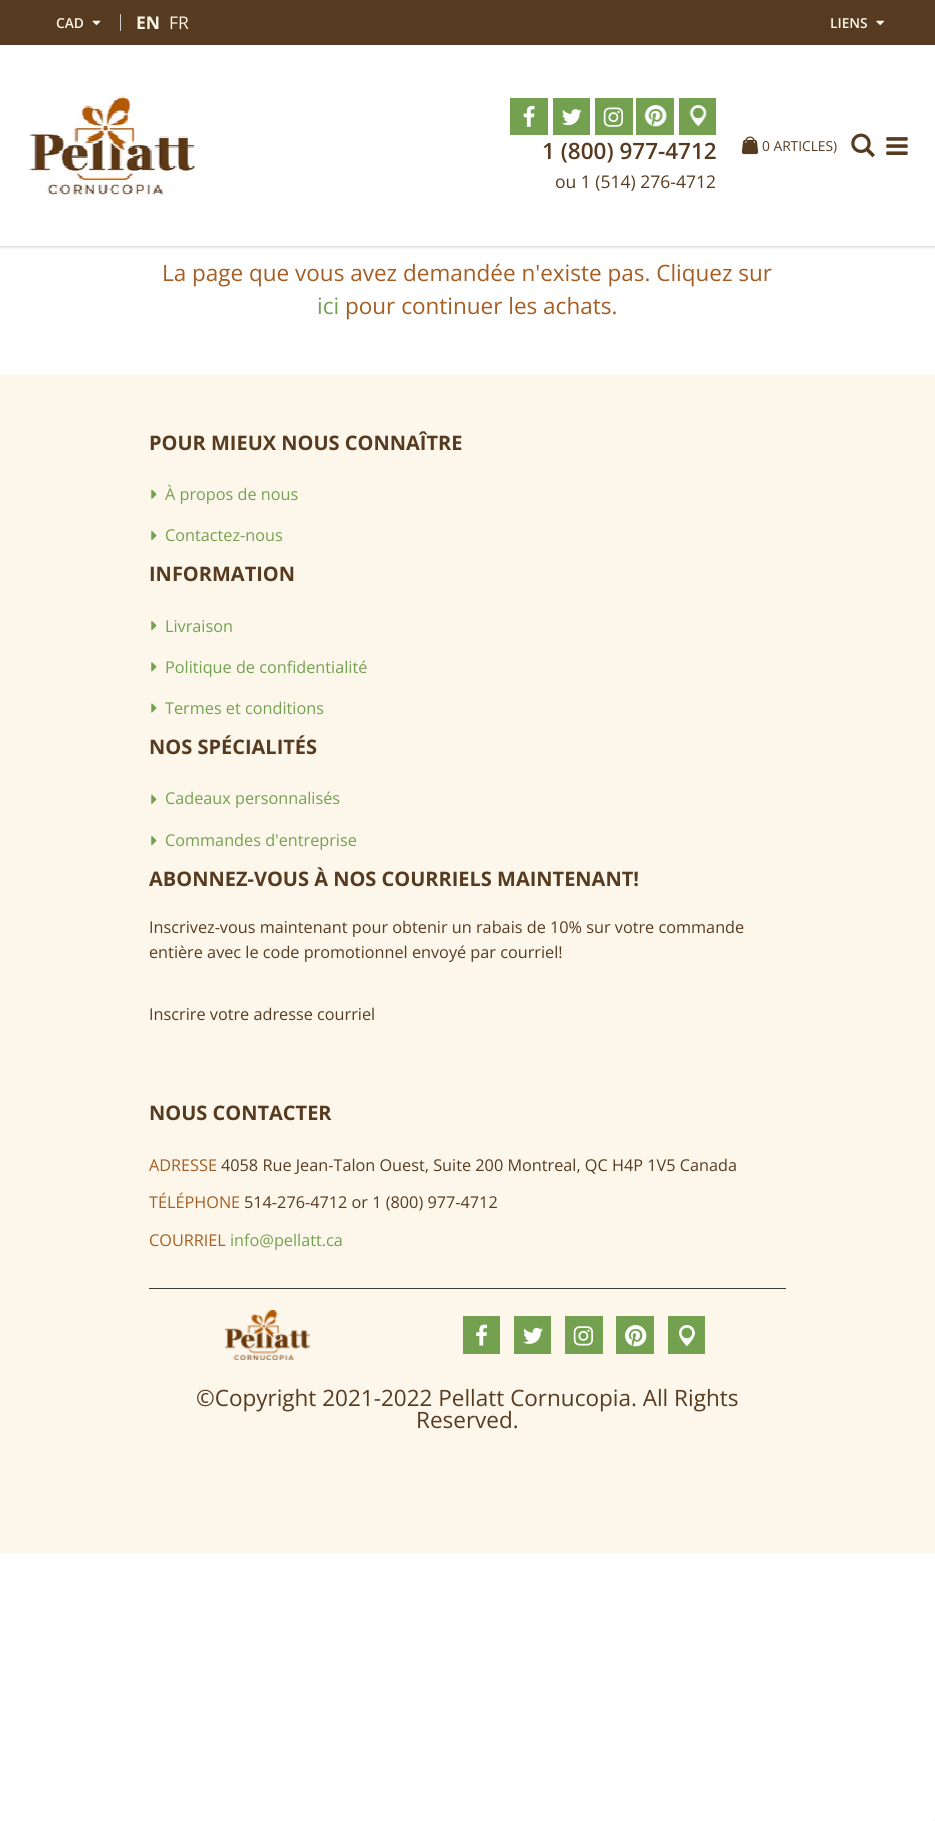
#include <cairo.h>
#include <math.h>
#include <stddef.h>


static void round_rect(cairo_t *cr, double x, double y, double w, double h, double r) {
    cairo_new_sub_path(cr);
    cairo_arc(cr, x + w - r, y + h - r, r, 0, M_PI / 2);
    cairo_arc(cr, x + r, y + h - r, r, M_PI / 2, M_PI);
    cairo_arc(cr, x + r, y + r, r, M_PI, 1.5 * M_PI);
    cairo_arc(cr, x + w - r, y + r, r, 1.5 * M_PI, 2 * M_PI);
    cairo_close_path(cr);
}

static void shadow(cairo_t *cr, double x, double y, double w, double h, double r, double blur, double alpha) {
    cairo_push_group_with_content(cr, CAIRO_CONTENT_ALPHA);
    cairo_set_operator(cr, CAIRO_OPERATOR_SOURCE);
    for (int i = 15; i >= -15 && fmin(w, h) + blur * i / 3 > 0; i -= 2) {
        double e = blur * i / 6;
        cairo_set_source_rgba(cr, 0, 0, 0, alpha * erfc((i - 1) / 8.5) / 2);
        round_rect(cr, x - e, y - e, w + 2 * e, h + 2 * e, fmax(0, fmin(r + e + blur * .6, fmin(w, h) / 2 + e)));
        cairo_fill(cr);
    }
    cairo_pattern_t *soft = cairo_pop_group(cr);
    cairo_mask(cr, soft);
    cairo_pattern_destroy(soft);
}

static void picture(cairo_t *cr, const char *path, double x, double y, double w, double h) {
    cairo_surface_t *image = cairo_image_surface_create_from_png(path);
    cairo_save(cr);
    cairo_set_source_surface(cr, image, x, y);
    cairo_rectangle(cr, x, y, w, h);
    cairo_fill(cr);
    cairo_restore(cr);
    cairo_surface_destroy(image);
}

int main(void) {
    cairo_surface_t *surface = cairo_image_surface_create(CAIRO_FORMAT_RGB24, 935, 1821);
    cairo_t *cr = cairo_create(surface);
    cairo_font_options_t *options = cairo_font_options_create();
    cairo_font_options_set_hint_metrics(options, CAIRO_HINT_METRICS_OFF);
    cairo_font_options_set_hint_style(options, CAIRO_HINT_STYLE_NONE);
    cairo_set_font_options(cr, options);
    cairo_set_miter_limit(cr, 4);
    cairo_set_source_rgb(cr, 1, 1, 1);
    cairo_paint(cr);
    cairo_set_source_rgb(cr, 0, 0, 0);
    shadow(cr, 0, 0, 935, 246, 0, 2, 0.3);
    cairo_set_source_rgb(cr, 1, 1, 1);
    cairo_rectangle(cr, 0, 45, 935, 201);
    cairo_fill(cr);
    cairo_set_source_rgb(cr, 0.341, 0.231, 0.125);
    cairo_rectangle(cr, 0, 0, 935, 45);
    cairo_fill(cr);
    cairo_select_font_face(cr, "Open Sans SemiBold", CAIRO_FONT_SLANT_NORMAL, CAIRO_FONT_WEIGHT_NORMAL);
    cairo_set_font_size(cr, 13.75);
    cairo_set_source_rgb(cr, 0.992, 0.965, 0.918);
    cairo_move_to(cr, 56, 28);
    cairo_show_text(cr, "CAD");
    picture(cr, "img1.png", 92, 20, 9, 6);
    cairo_set_source_rgb(cr, 0.8, 0.8, 0.8);
    cairo_rectangle(cr, 120, 14, 1, 17);
    cairo_fill(cr);
    cairo_select_font_face(cr, "Open Sans", CAIRO_FONT_SLANT_NORMAL, CAIRO_FONT_WEIGHT_BOLD);
    cairo_set_font_size(cr, 17.5);
    cairo_set_source_rgb(cr, 0.992, 0.965, 0.918);
    cairo_move_to(cr, 136, 29);
    cairo_show_text(cr, "EN");
    cairo_select_font_face(cr, "Open Sans", CAIRO_FONT_SLANT_NORMAL, CAIRO_FONT_WEIGHT_NORMAL);
    cairo_move_to(cr, 169, 29);
    cairo_show_text(cr, "FR");
    cairo_select_font_face(cr, "Open Sans SemiBold", CAIRO_FONT_SLANT_NORMAL, CAIRO_FONT_WEIGHT_NORMAL);
    cairo_set_font_size(cr, 13.75);
    cairo_move_to(cr, 830, 28);
    cairo_show_text(cr, "LIENS");
    picture(cr, "img2.png", 876, 20, 9, 6);
    picture(cr, "img3.png", 29, 95, 169, 101);
    cairo_set_source_rgb(cr, 0.451, 0.631, 0.314);
    cairo_rectangle(cr, 510, 98, 38, 37);
    cairo_fill(cr);
    picture(cr, "img4.png", 523, 105, 12, 22);
    cairo_rectangle(cr, 553, 98, 37, 37);
    cairo_fill(cr);
    picture(cr, "img5.png", 562, 109, 20, 17);
    cairo_rectangle(cr, 595, 98, 38, 37);
    cairo_fill(cr);
    picture(cr, "img6.png", 603, 107, 21, 20);
    cairo_rectangle(cr, 636, 98, 38, 37);
    cairo_fill(cr);
    picture(cr, "img7.png", 644, 105, 23, 22);
    cairo_rectangle(cr, 679, 98, 37, 37);
    cairo_fill(cr);
    picture(cr, "img8.png", 689, 105, 18, 22);
    cairo_set_font_size(cr, 22.5);
    cairo_set_source_rgb(cr, 0.341, 0.231, 0.125);
    cairo_move_to(cr, 542, 159);
    cairo_show_text(cr, "1 (800) 977-4712");
    cairo_select_font_face(cr, "Open Sans", CAIRO_FONT_SLANT_NORMAL, CAIRO_FONT_WEIGHT_NORMAL);
    cairo_set_font_size(cr, 17.5);
    cairo_move_to(cr, 555, 188);
    cairo_show_text(cr, "ou 1 (514) 276-4712");
    picture(cr, "img9.png", 741, 136, 18, 19);
    cairo_set_font_size(cr, 13.75);
    cairo_move_to(cr, 762, 151);
    cairo_show_text(cr, "0 ARTICLES)");
    picture(cr, "img10.png", 851, 133, 24, 25);
    picture(cr, "img11.png", 886, 137, 22, 18);
    cairo_set_font_size(cr, 22.5);
    cairo_set_source_rgb(cr, 0.651, 0.365, 0.129);
    cairo_move_to(cr, 162, 281);
    cairo_show_text(cr, "La page que vous avez demandée n'existe pas. Cliquez sur");
    cairo_set_source_rgb(cr, 0.451, 0.631, 0.314);
    cairo_move_to(cr, 317, 314);
    cairo_show_text(cr, "ici");
    cairo_set_source_rgb(cr, 0.651, 0.365, 0.129);
    cairo_move_to(cr, 345, 314);
    cairo_show_text(cr, "pour continuer les achats.");
    cairo_set_source_rgb(cr, 0.992, 0.965, 0.918);
    cairo_rectangle(cr, 0, 375, 935, 913);
    cairo_fill(cr);
    cairo_select_font_face(cr, "Open Sans", CAIRO_FONT_SLANT_NORMAL, CAIRO_FONT_WEIGHT_BOLD);
    cairo_set_font_size(cr, 20);
    cairo_set_source_rgb(cr, 0.341, 0.231, 0.125);
    cairo_move_to(cr, 149, 450);
    cairo_show_text(cr, "POUR MIEUX NOUS CONNAÎTRE");
    picture(cr, "img12.png", 151, 489, 6, 10);
    cairo_select_font_face(cr, "Open Sans", CAIRO_FONT_SLANT_NORMAL, CAIRO_FONT_WEIGHT_NORMAL);
    cairo_set_font_size(cr, 16.25);
    cairo_set_source_rgb(cr, 0.451, 0.631, 0.314);
    cairo_move_to(cr, 165, 500);
    cairo_show_text(cr, "À propos de nous");
    picture(cr, "img13.png", 151, 531, 6, 10);
    cairo_move_to(cr, 165, 541);
    cairo_show_text(cr, "Contactez-nous");
    cairo_select_font_face(cr, "Open Sans", CAIRO_FONT_SLANT_NORMAL, CAIRO_FONT_WEIGHT_BOLD);
    cairo_set_font_size(cr, 20);
    cairo_set_source_rgb(cr, 0.341, 0.231, 0.125);
    cairo_move_to(cr, 149, 581);
    cairo_show_text(cr, "INFORMATION");
    picture(cr, "img13.png", 151, 621, 6, 10);
    cairo_select_font_face(cr, "Open Sans", CAIRO_FONT_SLANT_NORMAL, CAIRO_FONT_WEIGHT_NORMAL);
    cairo_set_font_size(cr, 16.25);
    cairo_set_source_rgb(cr, 0.451, 0.631, 0.314);
    cairo_move_to(cr, 165, 632);
    cairo_show_text(cr, "Livraison");
    picture(cr, "img14.png", 151, 662, 6, 10);
    cairo_move_to(cr, 165, 673);
    cairo_show_text(cr, "Politique de confidentialité");
    picture(cr, "img15.png", 151, 703, 6, 10);
    cairo_move_to(cr, 165, 714);
    cairo_show_text(cr, "Termes et conditions");
    cairo_select_font_face(cr, "Open Sans", CAIRO_FONT_SLANT_NORMAL, CAIRO_FONT_WEIGHT_BOLD);
    cairo_set_font_size(cr, 20);
    cairo_set_source_rgb(cr, 0.341, 0.231, 0.125);
    cairo_move_to(cr, 149, 754);
    cairo_show_text(cr, "NOS SPÉCIALITÉS");
    picture(cr, "img12.png", 151, 794, 6, 10);
    cairo_select_font_face(cr, "Open Sans", CAIRO_FONT_SLANT_NORMAL, CAIRO_FONT_WEIGHT_NORMAL);
    cairo_set_font_size(cr, 16.25);
    cairo_set_source_rgb(cr, 0.451, 0.631, 0.314);
    cairo_move_to(cr, 165, 804);
    cairo_show_text(cr, "Cadeaux personnalisés");
    picture(cr, "img13.png", 151, 836, 6, 10);
    cairo_move_to(cr, 165, 846);
    cairo_show_text(cr, "Commandes d'entreprise");
    cairo_select_font_face(cr, "Open Sans", CAIRO_FONT_SLANT_NORMAL, CAIRO_FONT_WEIGHT_BOLD);
    cairo_set_font_size(cr, 20);
    cairo_set_source_rgb(cr, 0.341, 0.231, 0.125);
    cairo_move_to(cr, 149, 886);
    cairo_show_text(cr, "ABONNEZ-VOUS À NOS COURRIELS MAINTENANT!");
    cairo_select_font_face(cr, "Open Sans", CAIRO_FONT_SLANT_NORMAL, CAIRO_FONT_WEIGHT_NORMAL);
    cairo_set_font_size(cr, 16.25);
    cairo_move_to(cr, 149, 933);
    cairo_show_text(cr, "Inscrivez-vous maintenant pour obtenir un rabais de 10% sur votre commande");
    cairo_move_to(cr, 149, 958);
    cairo_show_text(cr, "entière avec le code promotionnel envoyé par courriel!");
    cairo_move_to(cr, 149, 1020);
    cairo_show_text(cr, "Inscrire votre adresse courriel");
    cairo_select_font_face(cr, "Open Sans", CAIRO_FONT_SLANT_NORMAL, CAIRO_FONT_WEIGHT_BOLD);
    cairo_set_font_size(cr, 20);
    cairo_move_to(cr, 149, 1120);
    cairo_show_text(cr, "NOUS CONTACTER");
    cairo_select_font_face(cr, "Open Sans", CAIRO_FONT_SLANT_NORMAL, CAIRO_FONT_WEIGHT_NORMAL);
    cairo_set_font_size(cr, 16.25);
    cairo_set_source_rgb(cr, 0.651, 0.365, 0.129);
    cairo_move_to(cr, 149, 1171);
    cairo_show_text(cr, "ADRESSE");
    cairo_set_source_rgb(cr, 0.341, 0.231, 0.125);
    cairo_move_to(cr, 221, 1171);
    cairo_show_text(cr, "4058 Rue Jean-Talon Ouest, Suite 200 Montreal, QC H4P 1V5 Canada");
    cairo_set_source_rgb(cr, 0.651, 0.365, 0.129);
    cairo_move_to(cr, 149, 1208);
    cairo_show_text(cr, "TÉLÉPHONE");
    cairo_set_source_rgb(cr, 0.341, 0.231, 0.125);
    cairo_move_to(cr, 244, 1208);
    cairo_show_text(cr, "514-276-4712 or 1 (800) 977-4712");
    cairo_set_source_rgb(cr, 0.651, 0.365, 0.129);
    cairo_move_to(cr, 149, 1246);
    cairo_show_text(cr, "COURRIEL");
    cairo_set_source_rgb(cr, 0.451, 0.631, 0.314);
    cairo_move_to(cr, 230, 1246);
    cairo_show_text(cr, "info@pellatt.ca");
    cairo_set_source_rgb(cr, 0.992, 0.965, 0.918);
    cairo_rectangle(cr, 0, 1288, 935, 265);
    cairo_fill(cr);
    cairo_set_source_rgb(cr, 0.239, 0.239, 0.22);
    cairo_rectangle(cr, 149, 1288, 637, 1);
    cairo_fill(cr);
    picture(cr, "img16.png", 225, 1310, 85, 50);
    cairo_set_source_rgb(cr, 0.451, 0.631, 0.314);
    cairo_rectangle(cr, 463, 1316, 37, 38);
    cairo_fill(cr);
    picture(cr, "img17.png", 476, 1324, 12, 22);
    cairo_rectangle(cr, 514, 1316, 37, 38);
    cairo_fill(cr);
    picture(cr, "img18.png", 523, 1327, 20, 17);
    cairo_rectangle(cr, 565, 1316, 38, 38);
    cairo_fill(cr);
    picture(cr, "img19.png", 573, 1326, 21, 20);
    cairo_rectangle(cr, 616, 1316, 38, 38);
    cairo_fill(cr);
    picture(cr, "img20.png", 625, 1325, 22, 22);
    cairo_rectangle(cr, 668, 1316, 37, 38);
    cairo_fill(cr);
    picture(cr, "img21.png", 679, 1325, 16, 22);
    cairo_set_font_size(cr, 22.5);
    cairo_set_source_rgb(cr, 0.341, 0.231, 0.125);
    cairo_move_to(cr, 196, 1406);
    cairo_show_text(cr, "©Copyright 2021-2022 Pellatt Cornucopia. All Rights");
    cairo_move_to(cr, 416, 1428);
    cairo_show_text(cr, "Reserved.");
    cairo_set_source_rgb(cr, 0.961, 0.961, 0.961);
    cairo_rectangle(cr, 933, 1819, 2, 2);
    cairo_fill(cr);
    cairo_surface_write_to_png(surface, "page.png");
    cairo_font_options_destroy(options);
    cairo_destroy(cr);
    cairo_surface_destroy(surface);
    return 0;
}
